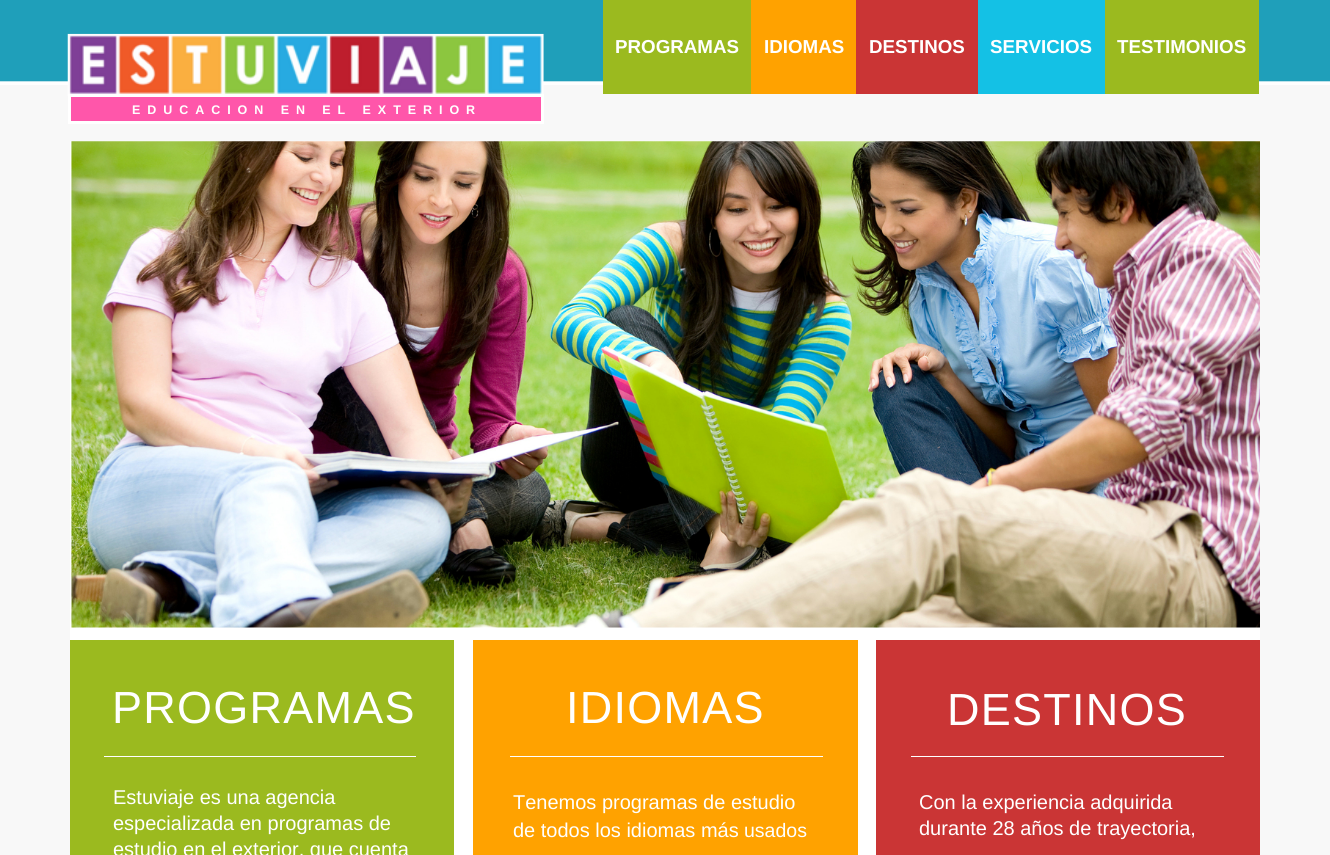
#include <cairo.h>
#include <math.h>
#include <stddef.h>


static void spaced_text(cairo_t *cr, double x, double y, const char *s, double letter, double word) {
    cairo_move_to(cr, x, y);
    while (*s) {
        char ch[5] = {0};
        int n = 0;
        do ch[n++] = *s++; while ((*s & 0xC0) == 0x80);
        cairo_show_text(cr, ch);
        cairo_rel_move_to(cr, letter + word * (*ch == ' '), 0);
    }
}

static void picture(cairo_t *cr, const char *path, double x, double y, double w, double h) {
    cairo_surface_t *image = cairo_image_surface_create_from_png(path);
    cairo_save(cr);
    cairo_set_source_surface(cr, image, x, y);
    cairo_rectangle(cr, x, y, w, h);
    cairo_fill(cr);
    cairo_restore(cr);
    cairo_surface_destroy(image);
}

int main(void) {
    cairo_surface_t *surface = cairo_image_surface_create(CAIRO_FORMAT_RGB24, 1330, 855);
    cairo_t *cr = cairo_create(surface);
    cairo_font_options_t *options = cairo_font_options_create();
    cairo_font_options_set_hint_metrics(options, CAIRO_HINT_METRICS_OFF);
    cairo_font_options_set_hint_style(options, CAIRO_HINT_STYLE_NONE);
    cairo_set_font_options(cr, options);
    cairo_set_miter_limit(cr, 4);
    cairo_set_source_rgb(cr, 0.969, 0.969, 0.969);
    cairo_paint(cr);
    picture(cr, "img1.png", 0, 0, 1330, 85);
    cairo_set_source_rgb(cr, 1, 1, 1);
    cairo_rectangle(cr, 70, 141, 1190, 714);
    cairo_fill(cr);
    picture(cr, "img2.png", 67, 33, 477, 63);
    cairo_set_source_rgb(cr, 0.608, 0.729, 0.122);
    cairo_rectangle(cr, 603, 0, 148, 94);
    cairo_fill(cr);
    cairo_select_font_face(cr, "Liberation Sans", CAIRO_FONT_SLANT_NORMAL, CAIRO_FONT_WEIGHT_BOLD);
    cairo_set_font_size(cr, 18.75);
    cairo_set_source_rgb(cr, 1, 1, 1);
    cairo_move_to(cr, 615, 53);
    cairo_show_text(cr, "PROGRAMAS");
    cairo_set_source_rgb(cr, 1, 0.635, 0);
    cairo_rectangle(cr, 751, 0, 105, 94);
    cairo_fill(cr);
    cairo_set_source_rgb(cr, 1, 1, 1);
    cairo_move_to(cr, 764, 53);
    cairo_show_text(cr, "IDIOMAS");
    cairo_set_source_rgb(cr, 0.792, 0.208, 0.208);
    cairo_rectangle(cr, 856, 0, 122, 94);
    cairo_fill(cr);
    cairo_set_source_rgb(cr, 1, 1, 1);
    cairo_move_to(cr, 869, 53);
    cairo_show_text(cr, "DESTINOS");
    cairo_set_source_rgb(cr, 0.082, 0.757, 0.898);
    cairo_rectangle(cr, 978, 0, 127, 94);
    cairo_fill(cr);
    cairo_set_source_rgb(cr, 1, 1, 1);
    cairo_move_to(cr, 990, 53);
    cairo_show_text(cr, "SERVICIOS");
    cairo_set_source_rgb(cr, 0.608, 0.729, 0.122);
    cairo_rectangle(cr, 1105, 0, 154, 94);
    cairo_fill(cr);
    cairo_set_source_rgb(cr, 1, 1, 1);
    cairo_move_to(cr, 1117, 53);
    cairo_show_text(cr, "TESTIMONIOS");
    cairo_set_source_rgb(cr, 1, 0.337, 0.667);
    cairo_rectangle(cr, 69.5, 95.5, 473, 27);
    cairo_fill_preserve(cr);
    cairo_set_source_rgb(cr, 1, 1, 1);
    cairo_set_line_width(cr, 3);
    cairo_stroke(cr);
    cairo_set_font_size(cr, 12.5);
    cairo_move_to(cr, 132, 114);
    cairo_show_text(cr, "E  D  U  C  A  C  I  O  N     E  N     E  L     E  X  T  E  R  I  O  R");
    picture(cr, "img3.png", 71, 141, 1189, 487);
    cairo_set_source_rgb(cr, 0.608, 0.729, 0.122);
    cairo_rectangle(cr, 70, 640, 384, 215);
    cairo_fill(cr);
    cairo_set_source_rgb(cr, 1, 0.635, 0);
    cairo_rectangle(cr, 473, 640, 385, 215);
    cairo_fill(cr);
    cairo_set_source_rgb(cr, 0.792, 0.208, 0.208);
    cairo_rectangle(cr, 876, 640, 384, 215);
    cairo_fill(cr);
    cairo_select_font_face(cr, "Liberation Sans", CAIRO_FONT_SLANT_NORMAL, CAIRO_FONT_WEIGHT_NORMAL);
    cairo_set_font_size(cr, 45);
    cairo_set_source_rgb(cr, 1, 1, 1);
    spaced_text(cr, 112, 723, "PROGRAMAS", 1.25, 0);
    spaced_text(cr, 566, 723, "IDIOMAS", 1.25, 0);
    spaced_text(cr, 947, 725, "DESTINOS", 1.25, 0);
    cairo_rectangle(cr, 104, 756, 312, 1);
    cairo_fill(cr);
    cairo_rectangle(cr, 510, 756, 313, 1);
    cairo_fill(cr);
    cairo_rectangle(cr, 911, 756, 313, 1);
    cairo_fill(cr);
    cairo_set_font_size(cr, 20);
    cairo_move_to(cr, 113, 804);
    cairo_show_text(cr, "Estuviaje es una agencia");
    cairo_move_to(cr, 113, 830);
    cairo_show_text(cr, "especializada en programas de");
    cairo_move_to(cr, 113, 856);
    cairo_show_text(cr, "estudio en el exterior, que cuenta");
    cairo_move_to(cr, 513, 809);
    cairo_show_text(cr, "Tenemos programas de estudio");
    cairo_move_to(cr, 513, 837);
    cairo_show_text(cr, "de todos los idiomas más");
    cairo_set_font_size(cr, 19.5);
    cairo_move_to(cr, 744, 837);
    cairo_show_text(cr, "usados");
    cairo_set_font_size(cr, 20);
    cairo_move_to(cr, 919, 809);
    cairo_show_text(cr, "Con la experiencia adquirida");
    cairo_move_to(cr, 919, 835);
    cairo_show_text(cr, "durante 28 años de trayectoria,");
    cairo_surface_write_to_png(surface, "page.png");
    cairo_font_options_destroy(options);
    cairo_destroy(cr);
    cairo_surface_destroy(surface);
    return 0;
}
